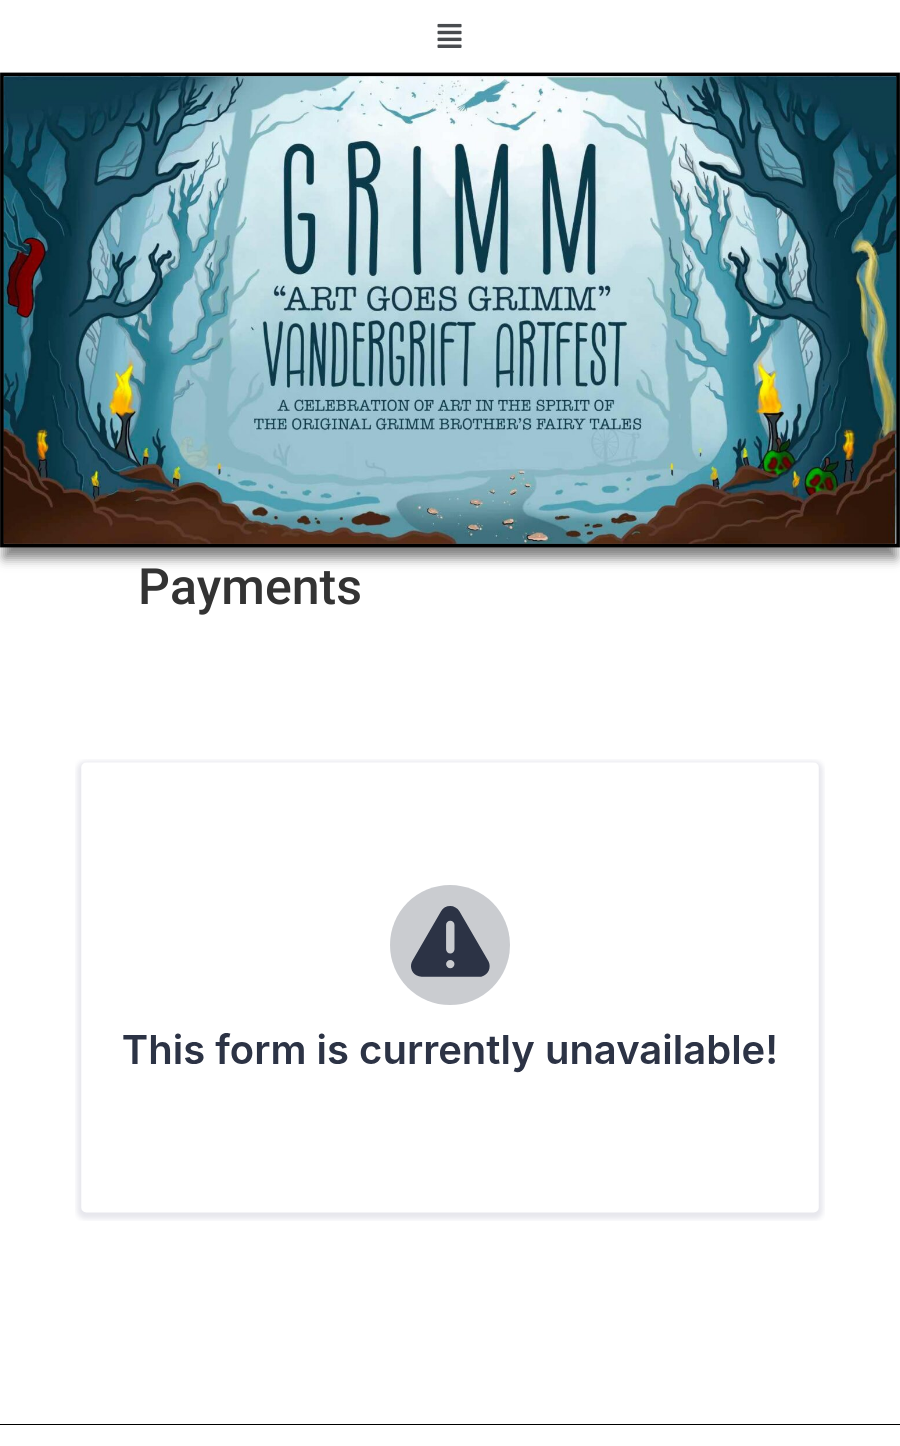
#include <cairo.h>
#include <math.h>
#include <stddef.h>


static void round_rect(cairo_t *cr, double x, double y, double w, double h, double r) {
    cairo_new_sub_path(cr);
    cairo_arc(cr, x + w - r, y + h - r, r, 0, M_PI / 2);
    cairo_arc(cr, x + r, y + h - r, r, M_PI / 2, M_PI);
    cairo_arc(cr, x + r, y + r, r, M_PI, 1.5 * M_PI);
    cairo_arc(cr, x + w - r, y + r, r, 1.5 * M_PI, 2 * M_PI);
    cairo_close_path(cr);
}

static void shadow(cairo_t *cr, double x, double y, double w, double h, double r, double blur, double alpha) {
    cairo_push_group_with_content(cr, CAIRO_CONTENT_ALPHA);
    cairo_set_operator(cr, CAIRO_OPERATOR_SOURCE);
    for (int i = 15; i >= -15 && fmin(w, h) + blur * i / 3 > 0; i -= 2) {
        double e = blur * i / 6;
        cairo_set_source_rgba(cr, 0, 0, 0, alpha * erfc((i - 1) / 8.5) / 2);
        round_rect(cr, x - e, y - e, w + 2 * e, h + 2 * e, fmax(0, fmin(r + e + blur * .6, fmin(w, h) / 2 + e)));
        cairo_fill(cr);
    }
    cairo_pattern_t *soft = cairo_pop_group(cr);
    cairo_mask(cr, soft);
    cairo_pattern_destroy(soft);
}

static void picture(cairo_t *cr, const char *path, double x, double y, double w, double h) {
    cairo_surface_t *image = cairo_image_surface_create_from_png(path);
    cairo_save(cr);
    cairo_set_source_surface(cr, image, x, y);
    cairo_rectangle(cr, x, y, w, h);
    cairo_fill(cr);
    cairo_restore(cr);
    cairo_surface_destroy(image);
}

int main(void) {
    cairo_surface_t *surface = cairo_image_surface_create(CAIRO_FORMAT_RGB24, 900, 1446);
    cairo_t *cr = cairo_create(surface);
    cairo_font_options_t *options = cairo_font_options_create();
    cairo_font_options_set_hint_metrics(options, CAIRO_HINT_METRICS_OFF);
    cairo_font_options_set_hint_style(options, CAIRO_HINT_STYLE_NONE);
    cairo_set_font_options(cr, options);
    cairo_set_miter_limit(cr, 4);
    cairo_set_source_rgb(cr, 1, 1, 1);
    cairo_paint(cr);
    picture(cr, "img1.png", 437, 23, 25, 25);
    cairo_new_path(cr);
    cairo_move_to(cr, 2, 74.5);
    cairo_line_to(cr, 898, 74.5);
    cairo_line_to(cr, 898, 545.5);
    cairo_line_to(cr, 2, 545.5);
    cairo_close_path(cr);
    cairo_set_source_rgb(cr, 0, 0, 0);
    cairo_set_line_width(cr, 3.8);
    cairo_stroke(cr);
    cairo_set_source_rgb(cr, 0, 0, 0);
    shadow(cr, 4, 90, 892, 468, 0, 6, 0.5);
    picture(cr, "img2.png", 3, 76, 894, 468);
    cairo_select_font_face(cr, "Roboto Medium", CAIRO_FONT_SLANT_NORMAL, CAIRO_FONT_WEIGHT_NORMAL);
    cairo_set_font_size(cr, 50);
    cairo_set_source_rgb(cr, 0.2, 0.2, 0.2);
    cairo_move_to(cr, 138, 604);
    cairo_show_text(cr, "Payments");
    picture(cr, "img3.png", 75, 759, 750, 462);
    cairo_set_source_rgb(cr, 0, 0, 0);
    cairo_rectangle(cr, 0, 1424, 900, 1);
    cairo_fill(cr);
    cairo_surface_write_to_png(surface, "page.png");
    cairo_font_options_destroy(options);
    cairo_destroy(cr);
    cairo_surface_destroy(surface);
    return 0;
}
